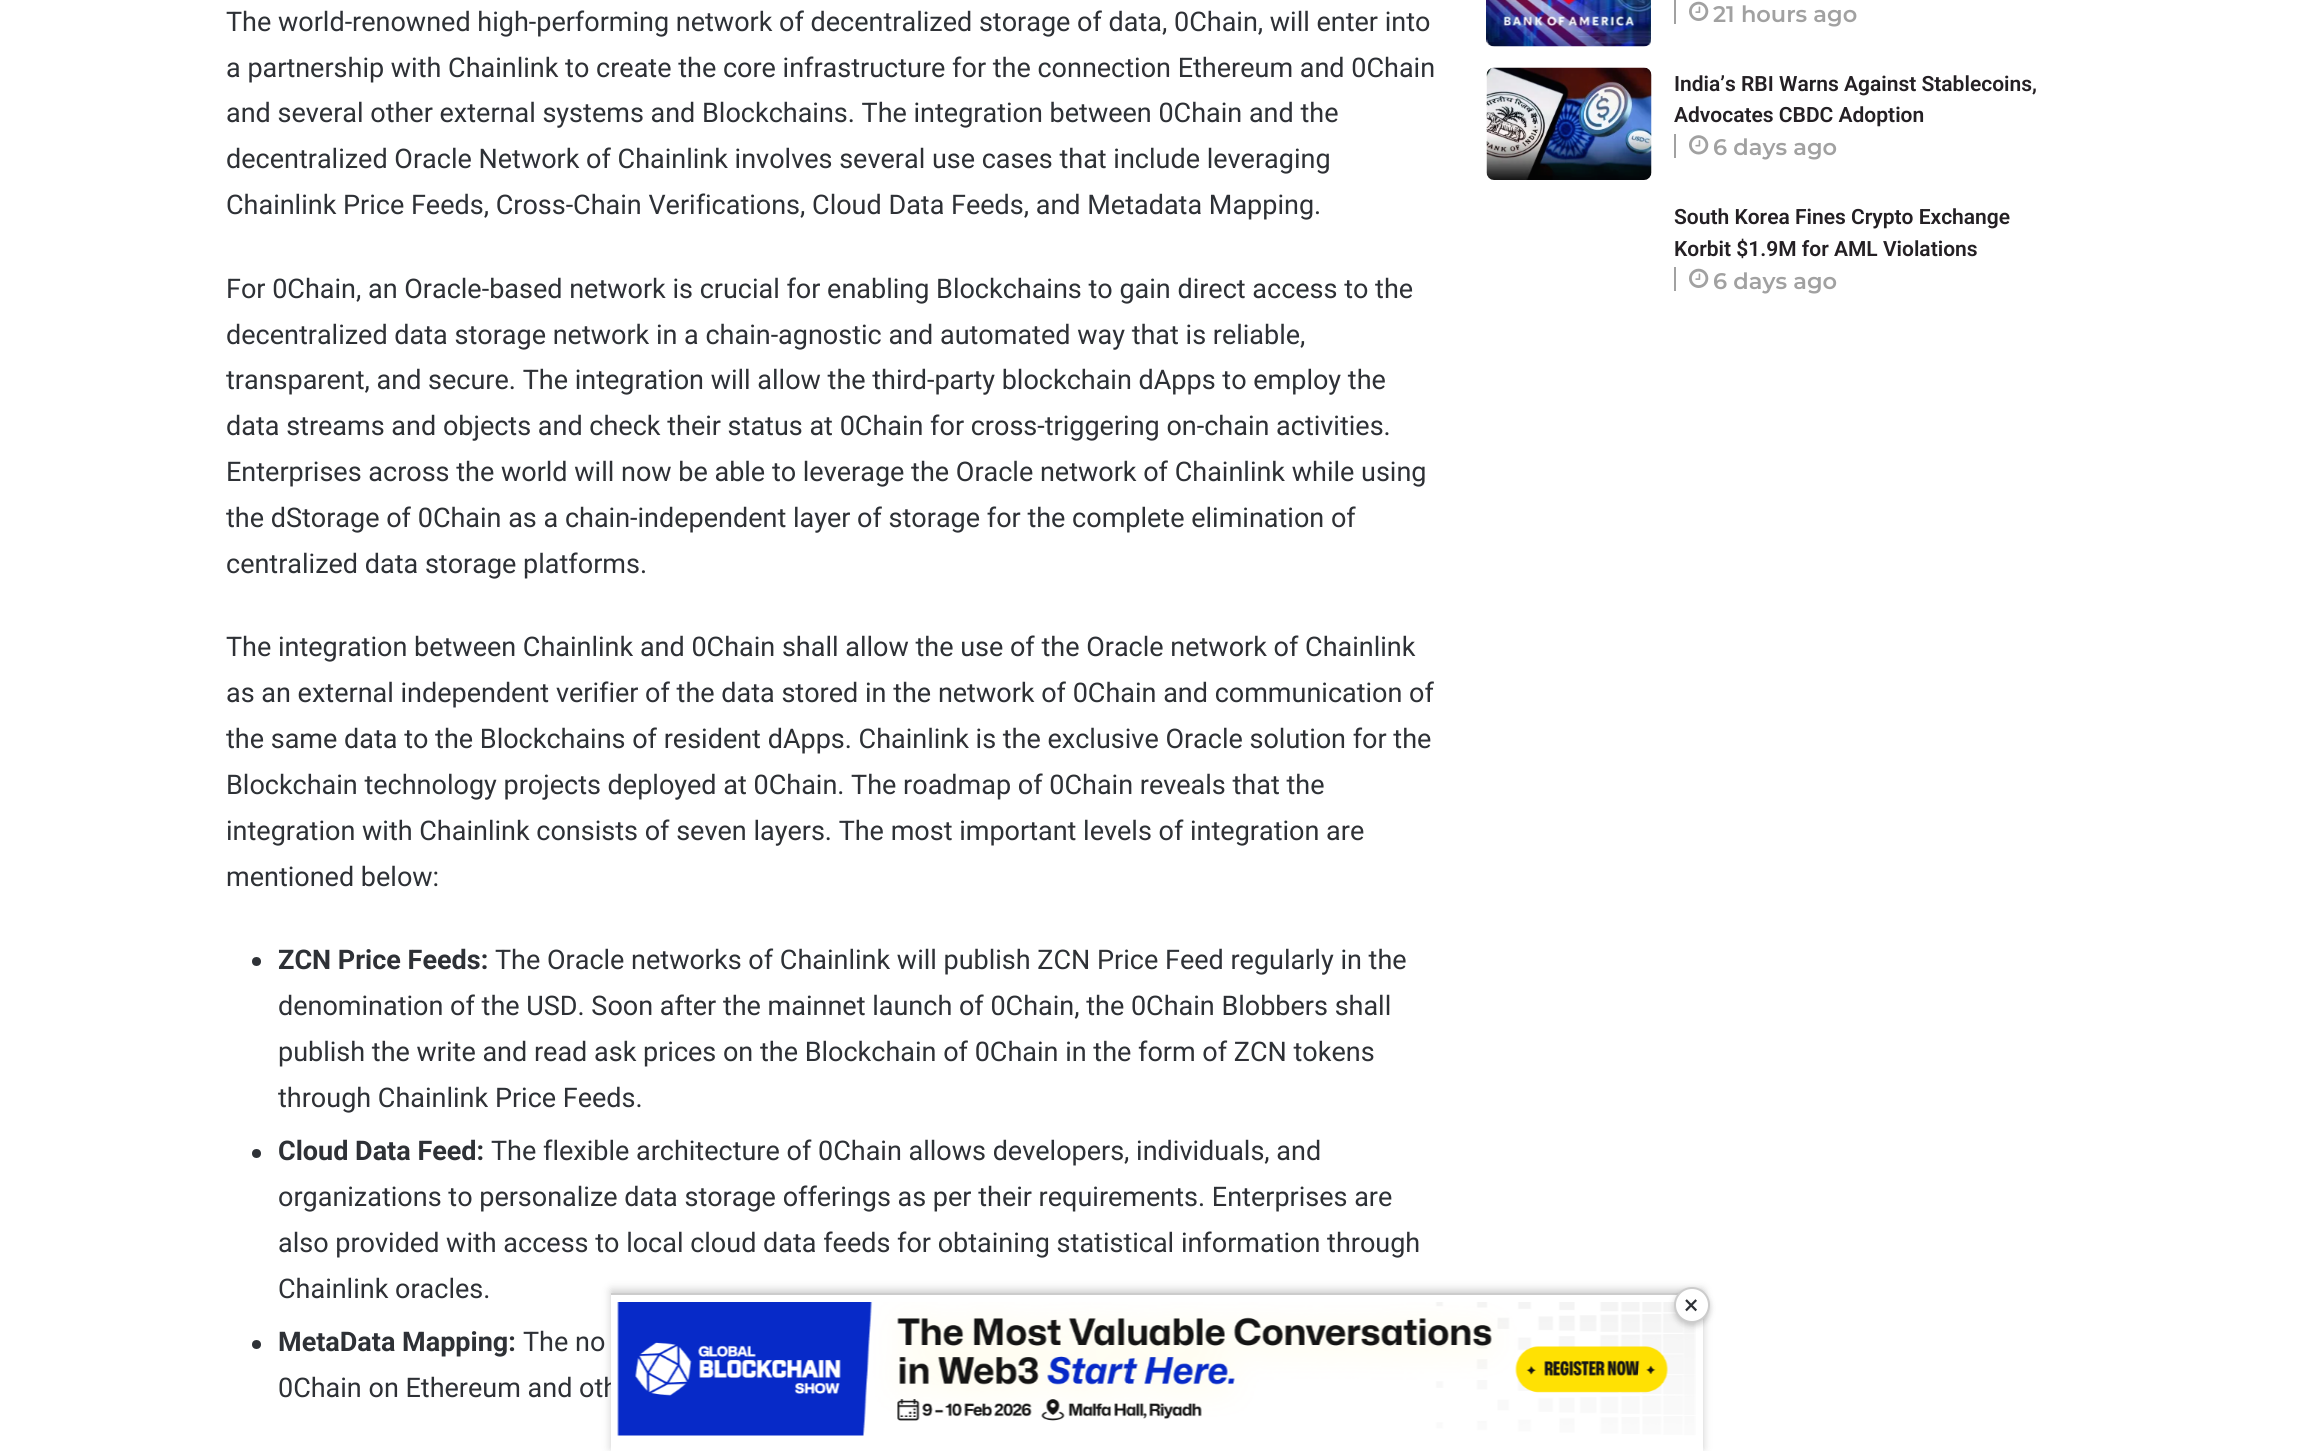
#include <cairo.h>
#include <math.h>
#include <stddef.h>


static void round_rect(cairo_t *cr, double x, double y, double w, double h, double r) {
    cairo_new_sub_path(cr);
    cairo_arc(cr, x + w - r, y + h - r, r, 0, M_PI / 2);
    cairo_arc(cr, x + r, y + h - r, r, M_PI / 2, M_PI);
    cairo_arc(cr, x + r, y + r, r, M_PI, 1.5 * M_PI);
    cairo_arc(cr, x + w - r, y + r, r, 1.5 * M_PI, 2 * M_PI);
    cairo_close_path(cr);
}

static void shadow(cairo_t *cr, double x, double y, double w, double h, double r, double blur, double alpha) {
    cairo_push_group_with_content(cr, CAIRO_CONTENT_ALPHA);
    cairo_set_operator(cr, CAIRO_OPERATOR_SOURCE);
    for (int i = 15; i >= -15 && fmin(w, h) + blur * i / 3 > 0; i -= 2) {
        double e = blur * i / 6;
        cairo_set_source_rgba(cr, 0, 0, 0, alpha * erfc((i - 1) / 8.5) / 2);
        round_rect(cr, x - e, y - e, w + 2 * e, h + 2 * e, fmax(0, fmin(r + e + blur * .6, fmin(w, h) / 2 + e)));
        cairo_fill(cr);
    }
    cairo_pattern_t *soft = cairo_pop_group(cr);
    cairo_mask(cr, soft);
    cairo_pattern_destroy(soft);
}

static void picture(cairo_t *cr, const char *path, double x, double y, double w, double h) {
    cairo_surface_t *image = cairo_image_surface_create_from_png(path);
    cairo_save(cr);
    cairo_set_source_surface(cr, image, x, y);
    cairo_rectangle(cr, x, y, w, h);
    cairo_fill(cr);
    cairo_restore(cr);
    cairo_surface_destroy(image);
}

int main(void) {
    cairo_surface_t *surface = cairo_image_surface_create(CAIRO_FORMAT_RGB24, 2311, 1451);
    cairo_t *cr = cairo_create(surface);
    cairo_font_options_t *options = cairo_font_options_create();
    cairo_font_options_set_hint_metrics(options, CAIRO_HINT_METRICS_OFF);
    cairo_font_options_set_hint_style(options, CAIRO_HINT_STYLE_NONE);
    cairo_set_font_options(cr, options);
    cairo_set_miter_limit(cr, 4);
    cairo_set_source_rgb(cr, 1, 1, 1);
    cairo_paint(cr);
    cairo_select_font_face(cr, "Roboto", CAIRO_FONT_SLANT_NORMAL, CAIRO_FONT_WEIGHT_NORMAL);
    cairo_set_font_size(cr, 27);
    cairo_set_source_rgb(cr, 0.18, 0.192, 0.212);
    cairo_move_to(cr, 226, 31);
    cairo_show_text(cr, "The world-renowned high-performing network of decentralized storage of data, 0Chain, will enter into");
    cairo_move_to(cr, 226, 77);
    cairo_show_text(cr, "a partnership with Chainlink to create the core infrastructure for the connection Ethereum and 0Chain");
    cairo_move_to(cr, 226, 122);
    cairo_show_text(cr, "and several other external systems and Blockchains. The integration between 0Chain and the");
    cairo_move_to(cr, 226, 168);
    cairo_show_text(cr, "decentralized Oracle Network of Chainlink involves several use cases that include leveraging");
    cairo_move_to(cr, 226, 214);
    cairo_show_text(cr, "Chainlink Price Feeds, Cross-Chain Verifications, Cloud Data Feeds, and Metadata Mapping.");
    cairo_move_to(cr, 226, 298);
    cairo_show_text(cr, "For 0Chain, an Oracle-based network is crucial for enabling Blockchains to gain direct access to the");
    cairo_move_to(cr, 226, 344);
    cairo_show_text(cr, "decentralized data storage network in a chain-agnostic and automated way that is reliable,");
    cairo_move_to(cr, 226, 389);
    cairo_show_text(cr, "transparent, and secure. The integration will allow the third-party blockchain dApps to employ the");
    cairo_move_to(cr, 226, 435);
    cairo_show_text(cr, "data streams and objects and check their status at 0Chain for cross-triggering on-chain activities.");
    cairo_move_to(cr, 226, 481);
    cairo_show_text(cr, "Enterprises across the world will now be able to leverage the Oracle network of Chainlink while using");
    cairo_move_to(cr, 226, 527);
    cairo_show_text(cr, "the dStorage of 0Chain as a chain-independent layer of storage for the complete elimination of");
    cairo_move_to(cr, 226, 573);
    cairo_show_text(cr, "centralized data storage platforms.");
    cairo_move_to(cr, 226, 656);
    cairo_show_text(cr, "The integration between Chainlink and 0Chain shall allow the use of the Oracle network of Chainlink");
    cairo_move_to(cr, 226, 702);
    cairo_show_text(cr, "as an external independent verifier of the data stored in the network of 0Chain and communication of");
    cairo_move_to(cr, 226, 748);
    cairo_show_text(cr, "the same data to the Blockchains of resident dApps. Chainlink is the exclusive Oracle solution for the");
    cairo_move_to(cr, 226, 794);
    cairo_show_text(cr, "Blockchain technology projects deployed at 0Chain. The roadmap of 0Chain reveals that the");
    cairo_move_to(cr, 226, 840);
    cairo_show_text(cr, "integration with Chainlink consists of seven layers. The most important levels of integration are");
    cairo_move_to(cr, 226, 886);
    cairo_show_text(cr, "mentioned below:");
    cairo_new_path(cr);
    cairo_arc(cr, 256.5, 961.5, 4.5, 0, 2 * M_PI);
    cairo_fill(cr);
    cairo_select_font_face(cr, "Roboto", CAIRO_FONT_SLANT_NORMAL, CAIRO_FONT_WEIGHT_BOLD);
    cairo_move_to(cr, 278, 969);
    cairo_show_text(cr, "ZCN Price Feeds:");
    cairo_select_font_face(cr, "Roboto", CAIRO_FONT_SLANT_NORMAL, CAIRO_FONT_WEIGHT_NORMAL);
    cairo_move_to(cr, 495, 969);
    cairo_show_text(cr, "The Oracle networks of Chainlink will publish ZCN Price Feed regularly in the");
    cairo_move_to(cr, 278, 1015);
    cairo_show_text(cr, "denomination of the USD. Soon after the mainnet launch of 0Chain, the 0Chain Blobbers shall");
    cairo_move_to(cr, 278, 1061);
    cairo_show_text(cr, "publish the write and read ask prices on the Blockchain of 0Chain in the form of ZCN tokens");
    cairo_move_to(cr, 278, 1107);
    cairo_show_text(cr, "through Chainlink Price Feeds.");
    cairo_new_path(cr);
    cairo_arc(cr, 256.5, 1153.5, 4.5, 0, 2 * M_PI);
    cairo_fill(cr);
    cairo_select_font_face(cr, "Roboto", CAIRO_FONT_SLANT_NORMAL, CAIRO_FONT_WEIGHT_BOLD);
    cairo_move_to(cr, 278, 1160);
    cairo_show_text(cr, "Cloud Data Feed:");
    cairo_select_font_face(cr, "Roboto", CAIRO_FONT_SLANT_NORMAL, CAIRO_FONT_WEIGHT_NORMAL);
    cairo_move_to(cr, 491, 1160);
    cairo_show_text(cr, "The flexible architecture of 0Chain allows developers, individuals, and");
    cairo_move_to(cr, 278, 1206);
    cairo_show_text(cr, "organizations to personalize data storage offerings as per their requirements. Enterprises are");
    cairo_move_to(cr, 278, 1252);
    cairo_show_text(cr, "also provided with access to local cloud data feeds for obtaining statistical information through");
    cairo_move_to(cr, 278, 1298);
    cairo_show_text(cr, "Chainlink oracles.");
    cairo_new_path(cr);
    cairo_arc(cr, 256.5, 1344.5, 4.5, 0, 2 * M_PI);
    cairo_fill(cr);
    cairo_select_font_face(cr, "Roboto", CAIRO_FONT_SLANT_NORMAL, CAIRO_FONT_WEIGHT_BOLD);
    cairo_move_to(cr, 278, 1351);
    cairo_show_text(cr, "MetaData Mapping:");
    cairo_select_font_face(cr, "Roboto", CAIRO_FONT_SLANT_NORMAL, CAIRO_FONT_WEIGHT_NORMAL);
    cairo_move_to(cr, 523, 1351);
    cairo_show_text(cr, "The no");
    cairo_move_to(cr, 278, 1397);
    cairo_show_text(cr, "0Chain on Ethereum and oth");
    picture(cr, "img1.png", 1486, 0, 165, 47);
    cairo_set_source_rgb(cr, 0.631, 0.631, 0.631);
    cairo_rectangle(cr, 1674, 0, 2, 24);
    cairo_fill(cr);
    picture(cr, "img2.png", 1689, 1, 20, 20);
    cairo_select_font_face(cr, "Montserrat SemiBold", CAIRO_FONT_SLANT_NORMAL, CAIRO_FONT_WEIGHT_NORMAL);
    cairo_set_font_size(cr, 22.5);
    cairo_move_to(cr, 1713, 22);
    cairo_show_text(cr, "21 hours ago");
    picture(cr, "img3.png", 1486, 67, 166, 113);
    cairo_select_font_face(cr, "Roboto SemiBold", CAIRO_FONT_SLANT_NORMAL, CAIRO_FONT_WEIGHT_NORMAL);
    cairo_set_font_size(cr, 21);
    cairo_set_source_rgb(cr, 0.141, 0.125, 0.141);
    cairo_move_to(cr, 1674, 91);
    cairo_show_text(cr, "India’s RBI Warns Against Stablecoins,");
    cairo_move_to(cr, 1674, 122);
    cairo_show_text(cr, "Advocates CBDC Adoption");
    cairo_set_source_rgb(cr, 0.631, 0.631, 0.631);
    cairo_rectangle(cr, 1674, 134, 2, 24);
    cairo_fill(cr);
    picture(cr, "img4.png", 1689, 135, 20, 20);
    cairo_select_font_face(cr, "Montserrat SemiBold", CAIRO_FONT_SLANT_NORMAL, CAIRO_FONT_WEIGHT_NORMAL);
    cairo_set_font_size(cr, 22.5);
    cairo_move_to(cr, 1713, 155);
    cairo_show_text(cr, "6 days ago");
    cairo_select_font_face(cr, "Roboto SemiBold", CAIRO_FONT_SLANT_NORMAL, CAIRO_FONT_WEIGHT_NORMAL);
    cairo_set_font_size(cr, 21);
    cairo_set_source_rgb(cr, 0.141, 0.125, 0.141);
    cairo_move_to(cr, 1674, 224);
    cairo_show_text(cr, "South Korea Fines Crypto Exchange");
    cairo_move_to(cr, 1674, 256);
    cairo_show_text(cr, "Korbit $1.9M for AML Violations");
    cairo_set_source_rgb(cr, 0.631, 0.631, 0.631);
    cairo_rectangle(cr, 1674, 267, 2, 24);
    cairo_fill(cr);
    picture(cr, "img2.png", 1689, 268, 20, 20);
    cairo_select_font_face(cr, "Montserrat SemiBold", CAIRO_FONT_SLANT_NORMAL, CAIRO_FONT_WEIGHT_NORMAL);
    cairo_set_font_size(cr, 22.5);
    cairo_move_to(cr, 1713, 289);
    cairo_show_text(cr, "6 days ago");
    cairo_set_source_rgb(cr, 0, 0, 0);
    shadow(cr, 611, 1290, 1092, 159, 0, 4.5, 0.2);
    cairo_set_source_rgb(cr, 1, 1, 1);
    cairo_rectangle(cr, 611, 1295, 1092, 156);
    cairo_fill(cr);
    cairo_set_source_rgb(cr, 0.8, 0.8, 0.8);
    cairo_rectangle(cr, 611, 1293, 1068, 2);
    cairo_fill(cr);
    picture(cr, "img5.png", 617, 1302, 1079, 134);
    cairo_set_source_rgb(cr, 0, 0, 0);
    shadow(cr, 1674, 1290, 36, 36, 18, 3, 0.2);
    cairo_set_source_rgb(cr, 1, 1, 1);
    cairo_arc(cr, 1692, 1305, 17, 0, 2 * M_PI);
    cairo_fill_preserve(cr);
    cairo_set_source_rgb(cr, 0.8, 0.8, 0.8);
    cairo_stroke(cr);
    cairo_select_font_face(cr, "Roboto", CAIRO_FONT_SLANT_NORMAL, CAIRO_FONT_WEIGHT_NORMAL);
    cairo_set_font_size(cr, 27);
    cairo_set_source_rgb(cr, 0.18, 0.192, 0.212);
    cairo_move_to(cr, 1684, 1314);
    cairo_show_text(cr, "×");
    cairo_surface_write_to_png(surface, "page.png");
    cairo_font_options_destroy(options);
    cairo_destroy(cr);
    cairo_surface_destroy(surface);
    return 0;
}
